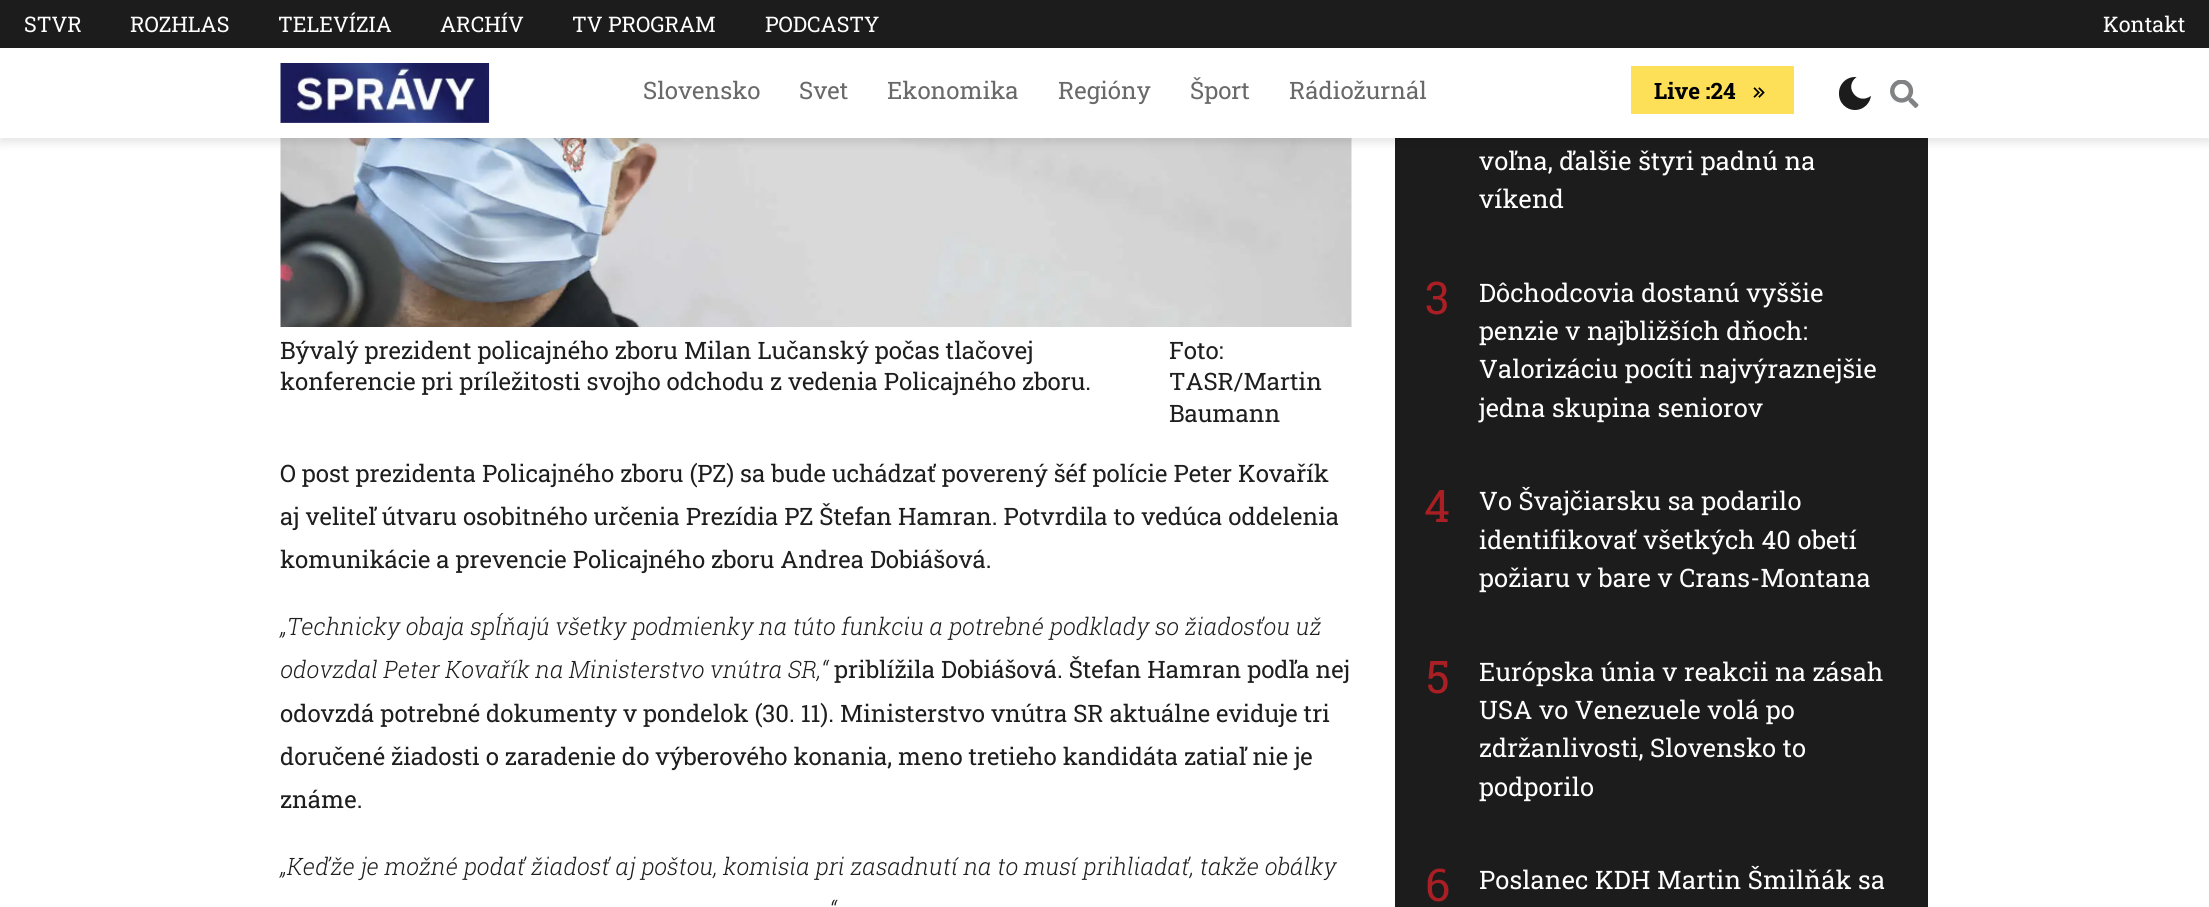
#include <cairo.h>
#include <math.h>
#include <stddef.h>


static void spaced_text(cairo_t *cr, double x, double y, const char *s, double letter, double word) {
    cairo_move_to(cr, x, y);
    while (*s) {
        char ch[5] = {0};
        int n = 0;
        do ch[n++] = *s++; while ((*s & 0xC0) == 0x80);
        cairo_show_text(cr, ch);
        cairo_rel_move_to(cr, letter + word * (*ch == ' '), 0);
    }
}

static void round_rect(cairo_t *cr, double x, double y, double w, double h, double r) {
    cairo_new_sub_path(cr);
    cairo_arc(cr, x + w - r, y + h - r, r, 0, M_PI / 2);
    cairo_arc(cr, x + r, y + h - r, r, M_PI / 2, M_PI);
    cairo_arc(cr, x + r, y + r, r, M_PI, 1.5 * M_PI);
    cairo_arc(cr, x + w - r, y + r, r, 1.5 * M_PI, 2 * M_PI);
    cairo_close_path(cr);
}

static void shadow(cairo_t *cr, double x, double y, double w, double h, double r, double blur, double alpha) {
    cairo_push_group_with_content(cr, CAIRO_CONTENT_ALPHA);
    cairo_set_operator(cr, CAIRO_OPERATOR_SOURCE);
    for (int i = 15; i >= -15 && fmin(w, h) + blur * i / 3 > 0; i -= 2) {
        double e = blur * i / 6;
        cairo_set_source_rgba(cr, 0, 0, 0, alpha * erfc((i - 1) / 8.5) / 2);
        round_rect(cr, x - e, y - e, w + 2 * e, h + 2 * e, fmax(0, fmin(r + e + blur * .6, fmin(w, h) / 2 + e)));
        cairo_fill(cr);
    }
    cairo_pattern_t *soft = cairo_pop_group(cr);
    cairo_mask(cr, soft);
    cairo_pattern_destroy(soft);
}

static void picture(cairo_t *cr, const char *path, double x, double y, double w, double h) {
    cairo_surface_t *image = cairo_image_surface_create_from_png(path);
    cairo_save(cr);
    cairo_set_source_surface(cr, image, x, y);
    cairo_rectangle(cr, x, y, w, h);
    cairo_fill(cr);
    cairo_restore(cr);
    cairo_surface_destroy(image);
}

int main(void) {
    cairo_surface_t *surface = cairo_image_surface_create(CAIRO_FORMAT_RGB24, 2209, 907);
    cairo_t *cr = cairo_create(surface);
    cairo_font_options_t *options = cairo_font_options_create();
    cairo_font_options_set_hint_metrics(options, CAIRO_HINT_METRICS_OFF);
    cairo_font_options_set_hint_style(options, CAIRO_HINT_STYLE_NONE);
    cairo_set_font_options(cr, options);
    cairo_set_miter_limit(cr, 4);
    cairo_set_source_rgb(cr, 1, 1, 1);
    cairo_paint(cr);
    picture(cr, "img4.png", 280, 138, 1072, 189);
    cairo_set_source_rgb(cr, 0.114, 0.11, 0.11);
    cairo_rectangle(cr, 1395, 138, 533, 769);
    cairo_fill(cr);
    cairo_set_source_rgb(cr, 0, 0, 0);
    shadow(cr, 0, 53, 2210, 90, 0, 4.5, 0.1);
    cairo_set_source_rgb(cr, 1, 1, 1);
    cairo_rectangle(cr, 0, 48, 2209, 90);
    cairo_fill(cr);
    cairo_set_source_rgb(cr, 0.114, 0.11, 0.11);
    cairo_rectangle(cr, 0, 0, 2209, 48);
    cairo_fill(cr);
    cairo_select_font_face(cr, "Roboto Slab", CAIRO_FONT_SLANT_NORMAL, CAIRO_FONT_WEIGHT_NORMAL);
    cairo_set_font_size(cr, 21.5);
    cairo_set_source_rgb(cr, 1, 1, 1);
    cairo_move_to(cr, 24, 32);
    cairo_show_text(cr, "STVR");
    cairo_move_to(cr, 130, 32);
    cairo_show_text(cr, "ROZHLAS");
    cairo_move_to(cr, 278, 32);
    cairo_show_text(cr, "TELEVÍZIA");
    cairo_move_to(cr, 440, 32);
    cairo_show_text(cr, "ARCHÍV");
    cairo_move_to(cr, 572, 32);
    cairo_show_text(cr, "TV PROGRAM");
    cairo_move_to(cr, 765, 32);
    cairo_show_text(cr, "PODCASTY");
    cairo_move_to(cr, 2103, 32);
    cairo_show_text(cr, "Kontakt");
    picture(cr, "img1.png", 280, 63, 210, 60);
    cairo_set_font_size(cr, 24);
    cairo_set_source_rgb(cr, 0.412, 0.412, 0.412);
    cairo_move_to(cr, 643, 99);
    cairo_show_text(cr, "Slovensko");
    cairo_move_to(cr, 799, 99);
    cairo_show_text(cr, "Svet");
    cairo_move_to(cr, 887, 99);
    cairo_show_text(cr, "Ekonomika");
    cairo_move_to(cr, 1058, 99);
    cairo_show_text(cr, "Regióny");
    cairo_move_to(cr, 1190, 99);
    cairo_show_text(cr, "Šport");
    cairo_move_to(cr, 1289, 99);
    cairo_show_text(cr, "Rádiožurnál");
    cairo_set_source_rgb(cr, 0.992, 0.878, 0.345);
    cairo_rectangle(cr, 1631, 66, 163, 48);
    cairo_fill(cr);
    cairo_select_font_face(cr, "Roboto Slab", CAIRO_FONT_SLANT_NORMAL, CAIRO_FONT_WEIGHT_BOLD);
    cairo_set_font_size(cr, 22.5);
    cairo_set_source_rgb(cr, 0, 0, 0);
    cairo_move_to(cr, 1654, 99);
    cairo_show_text(cr, "Live :24");
    picture(cr, "img2.png", 1753, 87, 12, 11);
    cairo_set_source_rgb(cr, 0.114, 0.11, 0.11);
    round_rect(cr, 1839, 77, 32, 33, 16);
    cairo_fill(cr);
    cairo_set_source_rgb(cr, 1, 1, 1);
    cairo_new_path(cr);
    cairo_move_to(cr, 1873, 79.5);
    cairo_curve_to(cr, 1882.5, 92.5, 1863, 106.5, 1853.5, 93.5);
    cairo_curve_to(cr, 1844.5, 81, 1864, 67, 1873, 79.5);
    cairo_close_path(cr);
    cairo_fill(cr);
    picture(cr, "img3.png", 1890, 80, 29, 28);
    cairo_select_font_face(cr, "Roboto Slab", CAIRO_FONT_SLANT_NORMAL, CAIRO_FONT_WEIGHT_NORMAL);
    cairo_set_font_size(cr, 24);
    cairo_set_source_rgb(cr, 0.118, 0.118, 0.118);
    cairo_move_to(cr, 280, 359);
    cairo_show_text(cr, "Bývalý prezident policajného zboru Milan Lučanský počas tlačovej");
    cairo_move_to(cr, 280, 390);
    cairo_show_text(cr, "konferencie pri príležitosti svojho odchodu z vedenia Policajného zboru.");
    cairo_move_to(cr, 1169, 359);
    cairo_show_text(cr, "Foto:");
    cairo_move_to(cr, 1169, 390);
    cairo_show_text(cr, "TASR/Martin");
    cairo_move_to(cr, 1169, 422);
    cairo_show_text(cr, "Baumann");
    cairo_move_to(cr, 280, 482);
    cairo_show_text(cr, "O post prezidenta Policajného zboru (PZ) sa bude uchádzať poverený šéf polície Peter Kovařík");
    cairo_move_to(cr, 280, 525);
    cairo_show_text(cr, "aj veliteľ útvaru osobitného určenia Prezídia PZ Štefan Hamran. Potvrdila to vedúca oddelenia");
    cairo_move_to(cr, 280, 568);
    cairo_show_text(cr, "komunikácie a prevencie Policajného zboru Andrea Dobiášová.");
    cairo_select_font_face(cr, "Roboto Slab Light", CAIRO_FONT_SLANT_ITALIC, CAIRO_FONT_WEIGHT_NORMAL);
    cairo_move_to(cr, 280, 635);
    cairo_show_text(cr, "„Technicky obaja spĺňajú všetky podmienky na túto funkciu a potrebné podklady so žiadosťou už");
    cairo_move_to(cr, 280, 678);
    cairo_show_text(cr, "odovzdal Peter Kovařík na Ministerstvo vnútra SR,“");
    cairo_select_font_face(cr, "Roboto Slab", CAIRO_FONT_SLANT_NORMAL, CAIRO_FONT_WEIGHT_NORMAL);
    cairo_move_to(cr, 834, 678);
    cairo_show_text(cr, "priblížila Dobiášová. Štefan Hamran podľa nej");
    cairo_move_to(cr, 280, 722);
    cairo_show_text(cr, "odovzdá potrebné dokumenty v pondelok (30. 11). Ministerstvo vnútra SR aktuálne eviduje tri");
    cairo_move_to(cr, 280, 765);
    cairo_show_text(cr, "doručené žiadosti o zaradenie do výberového konania, meno tretieho kandidáta zatiaľ nie je");
    cairo_move_to(cr, 280, 808);
    cairo_show_text(cr, "známe.");
    cairo_select_font_face(cr, "Roboto Slab Light", CAIRO_FONT_SLANT_ITALIC, CAIRO_FONT_WEIGHT_NORMAL);
    cairo_move_to(cr, 280, 875);
    cairo_show_text(cr, "„Keďže je možné podať žiadosť aj poštou, komisia pri zasadnutí na to musí prihliadať, takže obálky");
    cairo_move_to(cr, 829, 918);
    cairo_show_text(cr, "“");
    cairo_select_font_face(cr, "Roboto Slab", CAIRO_FONT_SLANT_NORMAL, CAIRO_FONT_WEIGHT_NORMAL);
    cairo_set_font_size(cr, 25.5);
    cairo_set_source_rgb(cr, 1, 1, 1);
    spaced_text(cr, 1479, 170, "voľna, ďalšie štyri padnú na", 0.15, 0);
    spaced_text(cr, 1479, 208, "víkend", 0.15, 0);
    cairo_set_font_size(cr, 45);
    cairo_set_source_rgb(cr, 0.663, 0.122, 0.141);
    cairo_move_to(cr, 1425, 314);
    cairo_show_text(cr, "3");
    cairo_set_font_size(cr, 25.5);
    cairo_set_source_rgb(cr, 1, 1, 1);
    spaced_text(cr, 1479, 302, "Dôchodcovia dostanú vyššie", 0.15, 0);
    spaced_text(cr, 1479, 340, "penzie v najbližších dňoch:", 0.15, 0);
    spaced_text(cr, 1479, 378, "Valorizáciu pocíti najvýraznejšie", 0.15, 0);
    spaced_text(cr, 1479, 417, "jedna skupina seniorov", 0.15, 0);
    cairo_set_font_size(cr, 45);
    cairo_set_source_rgb(cr, 0.663, 0.122, 0.141);
    cairo_move_to(cr, 1424, 522);
    cairo_show_text(cr, "4");
    cairo_set_font_size(cr, 25.5);
    cairo_set_source_rgb(cr, 1, 1, 1);
    spaced_text(cr, 1479, 510, "Vo Švajčiarsku sa podarilo", 0.15, 0);
    spaced_text(cr, 1479, 549, "identifikovať všetkých 40 obetí", 0.15, 0);
    spaced_text(cr, 1479, 587, "požiaru v bare v Crans-Montana", 0.15, 0);
    cairo_set_font_size(cr, 45);
    cairo_set_source_rgb(cr, 0.663, 0.122, 0.141);
    cairo_move_to(cr, 1426, 693);
    cairo_show_text(cr, "5");
    cairo_set_font_size(cr, 25.5);
    cairo_set_source_rgb(cr, 1, 1, 1);
    spaced_text(cr, 1479, 681, "Európska únia v reakcii na zásah", 0.15, 0);
    spaced_text(cr, 1479, 719, "USA vo Venezuele volá po", 0.15, 0);
    spaced_text(cr, 1479, 757, "zdržanlivosti, Slovensko to", 0.15, 0);
    spaced_text(cr, 1479, 796, "podporilo", 0.15, 0);
    cairo_set_font_size(cr, 45);
    cairo_set_source_rgb(cr, 0.663, 0.122, 0.141);
    cairo_move_to(cr, 1425, 901);
    cairo_show_text(cr, "6");
    cairo_set_font_size(cr, 25.5);
    cairo_set_source_rgb(cr, 1, 1, 1);
    spaced_text(cr, 1479, 889, "Poslanec KDH Martin Šmilňák sa", 0.15, 0);
    cairo_surface_write_to_png(surface, "page.png");
    cairo_font_options_destroy(options);
    cairo_destroy(cr);
    cairo_surface_destroy(surface);
    return 0;
}
